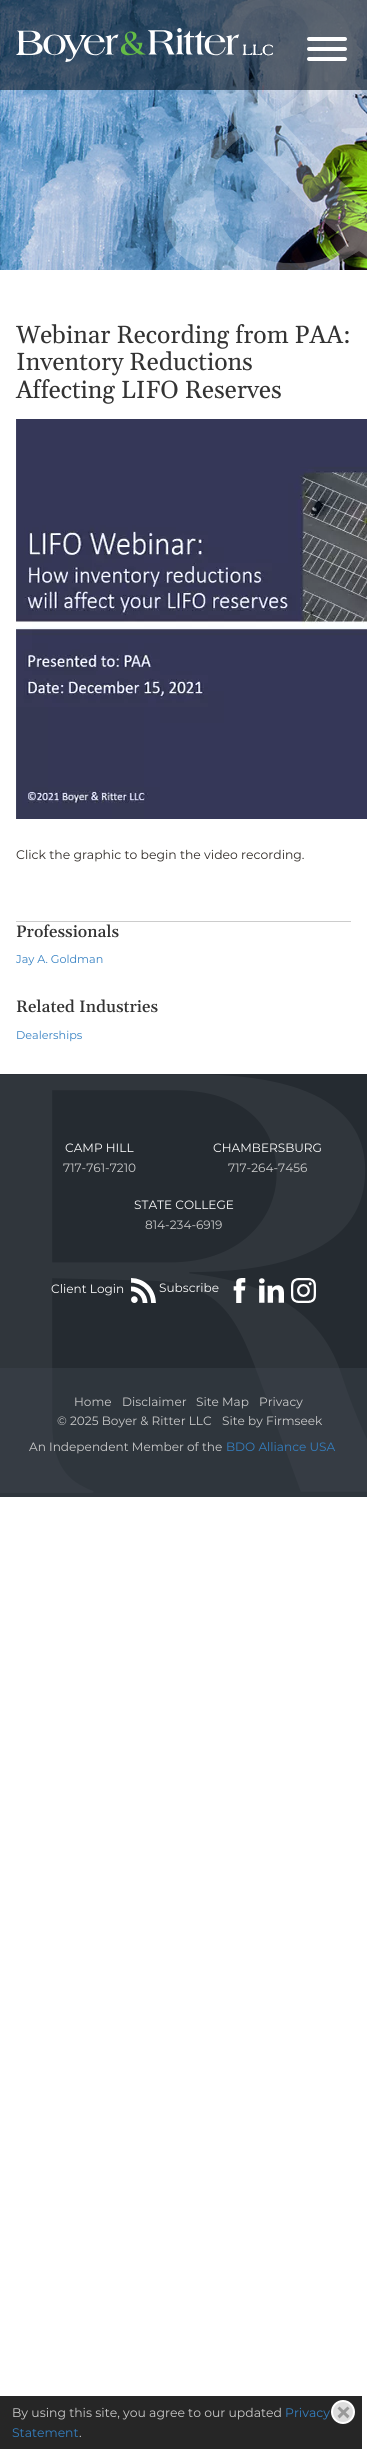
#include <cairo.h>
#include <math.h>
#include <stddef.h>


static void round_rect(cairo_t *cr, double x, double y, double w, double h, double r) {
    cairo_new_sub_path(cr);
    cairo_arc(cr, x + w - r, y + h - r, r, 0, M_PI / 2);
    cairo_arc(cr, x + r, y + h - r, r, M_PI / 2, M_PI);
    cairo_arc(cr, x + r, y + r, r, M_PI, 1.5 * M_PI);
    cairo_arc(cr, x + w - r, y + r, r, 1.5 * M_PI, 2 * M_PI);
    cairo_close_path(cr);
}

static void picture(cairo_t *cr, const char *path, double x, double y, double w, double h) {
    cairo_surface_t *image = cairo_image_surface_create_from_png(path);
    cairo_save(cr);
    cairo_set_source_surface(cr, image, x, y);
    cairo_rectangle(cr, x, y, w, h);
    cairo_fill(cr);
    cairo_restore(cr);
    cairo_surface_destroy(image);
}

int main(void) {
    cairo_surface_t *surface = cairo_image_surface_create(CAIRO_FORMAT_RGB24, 367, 2449);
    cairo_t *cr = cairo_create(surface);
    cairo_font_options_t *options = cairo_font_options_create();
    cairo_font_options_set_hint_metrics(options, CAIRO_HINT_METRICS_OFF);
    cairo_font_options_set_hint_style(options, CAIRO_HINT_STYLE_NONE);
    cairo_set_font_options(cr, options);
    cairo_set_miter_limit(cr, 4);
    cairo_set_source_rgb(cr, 1, 1, 1);
    cairo_paint(cr);
    picture(cr, "img1.png", 0, 0, 367, 270);
    picture(cr, "img2.png", 163, 0, 204, 270);
    cairo_set_source_rgba(cr, 0, 0.047, 0.09, 0.58);
    cairo_rectangle(cr, 0, 0, 367, 90);
    cairo_fill(cr);
    picture(cr, "img3.png", 16, 28, 257, 34);
    cairo_set_source_rgb(cr, 1, 1, 1);
    round_rect(cr, 307, 37, 40, 4, 2);
    cairo_fill(cr);
    round_rect(cr, 307, 47, 40, 4, 2);
    cairo_fill(cr);
    round_rect(cr, 307, 57, 40, 4, 2);
    cairo_fill(cr);
    cairo_select_font_face(cr, "Gelasio", CAIRO_FONT_SLANT_NORMAL, CAIRO_FONT_WEIGHT_NORMAL);
    cairo_set_font_size(cr, 24.75);
    cairo_set_source_rgb(cr, 0.2, 0.2, 0.2);
    cairo_move_to(cr, 16, 343);
    cairo_show_text(cr, "Webinar Recording from PAA:");
    cairo_move_to(cr, 16, 370);
    cairo_show_text(cr, "Inventory Reductions");
    cairo_move_to(cr, 16, 398);
    cairo_show_text(cr, "Affecting LIFO Reserves");
    picture(cr, "img4.png", 16, 419, 351, 400);
    cairo_select_font_face(cr, "Montserrat", CAIRO_FONT_SLANT_NORMAL, CAIRO_FONT_WEIGHT_NORMAL);
    cairo_set_font_size(cr, 12.4);
    cairo_set_source_rgb(cr, 0.18, 0.161, 0.145);
    cairo_move_to(cr, 16, 859);
    cairo_show_text(cr, "Click the graphic to begin the video recording.");
    cairo_set_source_rgb(cr, 0.8, 0.8, 0.8);
    cairo_rectangle(cr, 16, 921, 335, 1);
    cairo_fill(cr);
    cairo_select_font_face(cr, "Gelasio Medium", CAIRO_FONT_SLANT_NORMAL, CAIRO_FONT_WEIGHT_NORMAL);
    cairo_set_font_size(cr, 16.5);
    cairo_set_source_rgb(cr, 0.2, 0.2, 0.2);
    cairo_move_to(cr, 16, 937);
    cairo_show_text(cr, "Professionals");
    cairo_select_font_face(cr, "Montserrat", CAIRO_FONT_SLANT_NORMAL, CAIRO_FONT_WEIGHT_NORMAL);
    cairo_set_font_size(cr, 11.25);
    cairo_set_source_rgb(cr, 0.204, 0.502, 0.761);
    cairo_move_to(cr, 16, 963);
    cairo_show_text(cr, "Jay A. Goldman");
    cairo_select_font_face(cr, "Gelasio Medium", CAIRO_FONT_SLANT_NORMAL, CAIRO_FONT_WEIGHT_NORMAL);
    cairo_set_font_size(cr, 16.5);
    cairo_set_source_rgb(cr, 0.2, 0.2, 0.2);
    cairo_move_to(cr, 16, 1012);
    cairo_show_text(cr, "Related Industries");
    cairo_select_font_face(cr, "Montserrat", CAIRO_FONT_SLANT_NORMAL, CAIRO_FONT_WEIGHT_NORMAL);
    cairo_set_font_size(cr, 11.25);
    cairo_set_source_rgb(cr, 0.204, 0.502, 0.761);
    cairo_move_to(cr, 16, 1039);
    cairo_show_text(cr, "Dealerships");
    cairo_set_source_rgb(cr, 0.145, 0.169, 0.192);
    cairo_rectangle(cr, 0, 1074, 367, 423);
    cairo_fill(cr);
    picture(cr, "img5.png", 0, 1074, 367, 419);
    cairo_set_font_size(cr, 12.1);
    cairo_set_source_rgb(cr, 1, 1, 1);
    cairo_move_to(cr, 65, 1152);
    cairo_show_text(cr, "CAMP HILL");
    cairo_set_source_rgb(cr, 0.8, 0.8, 0.8);
    cairo_move_to(cr, 63, 1172);
    cairo_show_text(cr, "717-761-7210");
    cairo_set_source_rgb(cr, 1, 1, 1);
    cairo_move_to(cr, 213, 1152);
    cairo_show_text(cr, "CHAMBERSBURG");
    cairo_set_source_rgb(cr, 0.8, 0.8, 0.8);
    cairo_move_to(cr, 228, 1172);
    cairo_show_text(cr, "717-264-7456");
    cairo_set_source_rgb(cr, 1, 1, 1);
    cairo_move_to(cr, 134, 1209);
    cairo_show_text(cr, "STATE COLLEGE");
    cairo_set_source_rgb(cr, 0.8, 0.8, 0.8);
    cairo_move_to(cr, 145, 1229);
    cairo_show_text(cr, "814-234-6919");
    cairo_set_source_rgb(cr, 1, 1, 1);
    cairo_move_to(cr, 51, 1293);
    cairo_show_text(cr, "Client Login");
    picture(cr, "img6.png", 131, 1278, 25, 25);
    cairo_move_to(cr, 159, 1292);
    cairo_show_text(cr, "Subscribe");
    picture(cr, "img7.png", 233, 1278, 13, 25);
    picture(cr, "img8.png", 259, 1278, 25, 25);
    picture(cr, "img9.png", 291, 1278, 25, 25);
    cairo_set_source_rgba(cr, 0.247, 0.278, 0.31, 0.42);
    cairo_rectangle(cr, 0, 1368, 367, 129);
    cairo_fill(cr);
    cairo_set_source_rgb(cr, 0.8, 0.8, 0.8);
    cairo_move_to(cr, 74, 1406);
    cairo_show_text(cr, "Home");
    cairo_move_to(cr, 122, 1406);
    cairo_show_text(cr, "Disclaimer");
    cairo_move_to(cr, 196, 1406);
    cairo_show_text(cr, "Site Map");
    cairo_move_to(cr, 259, 1406);
    cairo_show_text(cr, "Privacy");
    cairo_move_to(cr, 57, 1425);
    cairo_show_text(cr, "© 2025 Boyer & Ritter LLC");
    cairo_move_to(cr, 222, 1425);
    cairo_show_text(cr, "Site by Firmseek");
    cairo_move_to(cr, 29, 1451);
    cairo_show_text(cr, "An Independent Member of the");
    cairo_set_source_rgb(cr, 0.204, 0.502, 0.761);
    cairo_move_to(cr, 226, 1451);
    cairo_show_text(cr, "BDO Alliance USA");
    cairo_set_source_rgb(cr, 0.149, 0.149, 0.149);
    cairo_rectangle(cr, 0, 2396, 362, 53);
    cairo_fill(cr);
    cairo_set_font_size(cr, 12.4);
    cairo_set_source_rgb(cr, 0.8, 0.8, 0.8);
    cairo_move_to(cr, 12, 2417);
    cairo_show_text(cr, "By using this site, you agree to our updated");
    cairo_set_source_rgb(cr, 0.204, 0.502, 0.761);
    cairo_move_to(cr, 285, 2417);
    cairo_show_text(cr, "Privacy");
    cairo_move_to(cr, 12, 2437);
    cairo_show_text(cr, "Statement");
    cairo_set_source_rgb(cr, 0.8, 0.8, 0.8);
    cairo_move_to(cr, 79, 2437);
    cairo_show_text(cr, ".");
    cairo_set_source_rgb(cr, 0.867, 0.867, 0.867);
    cairo_new_path(cr);
    cairo_arc(cr, 343, 2412, 11, 0, 2 * M_PI);
    cairo_fill_preserve(cr);
    cairo_set_source_rgb(cr, 1, 1, 1);
    cairo_stroke(cr);
    cairo_set_source_rgb(cr, 0.6, 0.6, 0.6);
    cairo_new_path(cr);
    cairo_move_to(cr, 337.5, 2416);
    cairo_line_to(cr, 347.5, 2406.5);
    cairo_line_to(cr, 349.5, 2408.5);
    cairo_line_to(cr, 339.5, 2418.5);
    cairo_close_path(cr);
    cairo_fill(cr);
    cairo_new_path(cr);
    cairo_move_to(cr, 339.5, 2406.5);
    cairo_line_to(cr, 349.5, 2416);
    cairo_line_to(cr, 347.5, 2418.5);
    cairo_line_to(cr, 337.5, 2408.5);
    cairo_close_path(cr);
    cairo_fill(cr);
    cairo_surface_write_to_png(surface, "page.png");
    cairo_font_options_destroy(options);
    cairo_destroy(cr);
    cairo_surface_destroy(surface);
    return 0;
}
